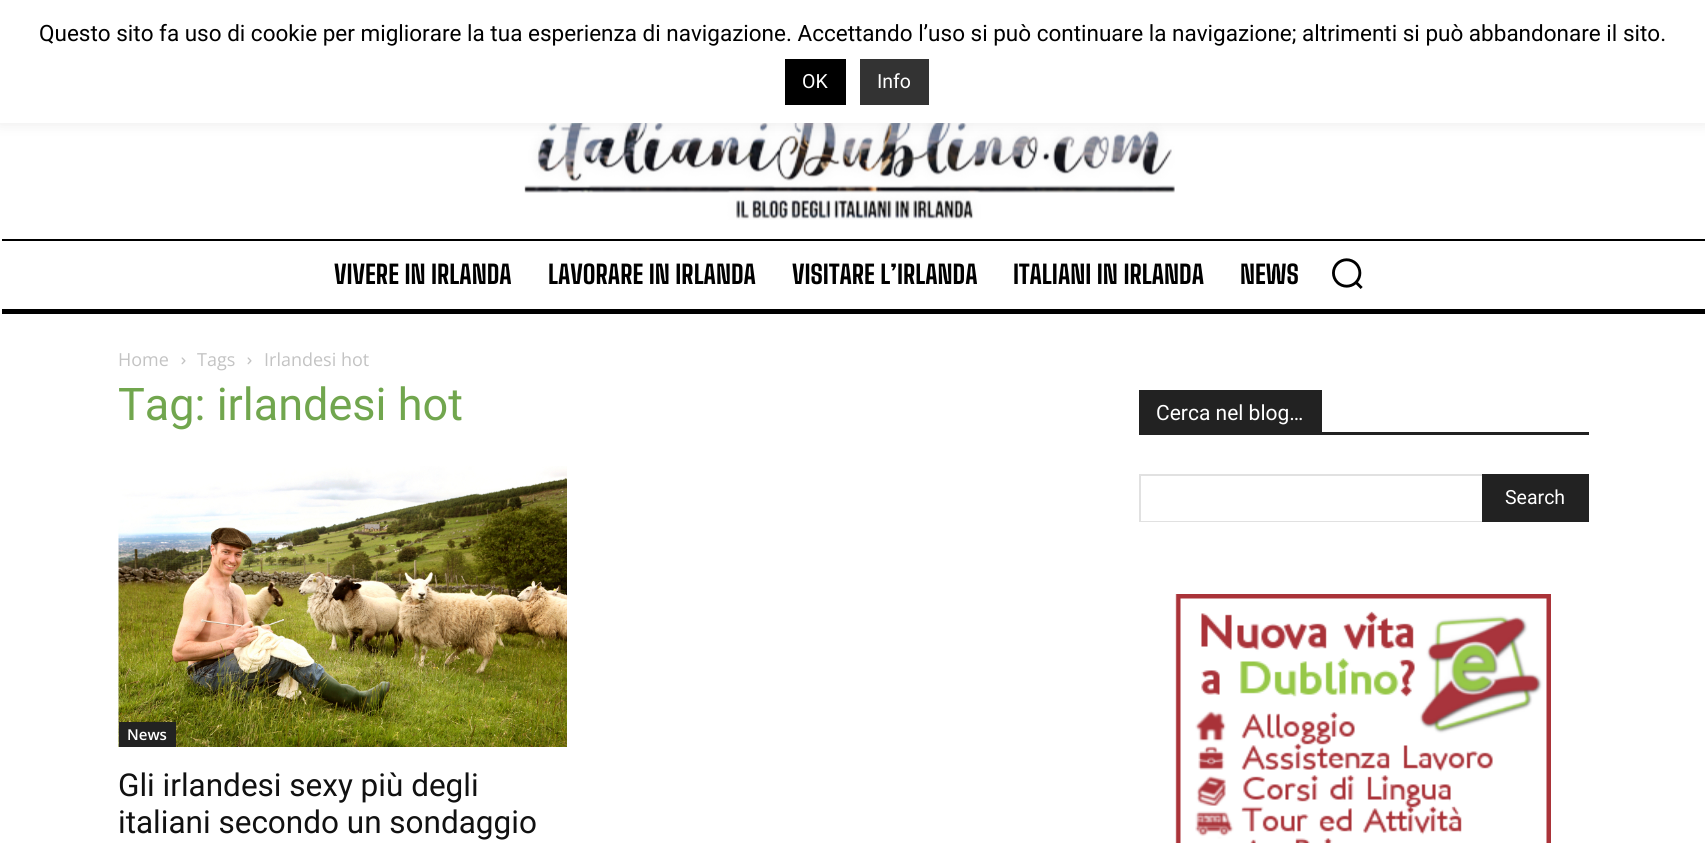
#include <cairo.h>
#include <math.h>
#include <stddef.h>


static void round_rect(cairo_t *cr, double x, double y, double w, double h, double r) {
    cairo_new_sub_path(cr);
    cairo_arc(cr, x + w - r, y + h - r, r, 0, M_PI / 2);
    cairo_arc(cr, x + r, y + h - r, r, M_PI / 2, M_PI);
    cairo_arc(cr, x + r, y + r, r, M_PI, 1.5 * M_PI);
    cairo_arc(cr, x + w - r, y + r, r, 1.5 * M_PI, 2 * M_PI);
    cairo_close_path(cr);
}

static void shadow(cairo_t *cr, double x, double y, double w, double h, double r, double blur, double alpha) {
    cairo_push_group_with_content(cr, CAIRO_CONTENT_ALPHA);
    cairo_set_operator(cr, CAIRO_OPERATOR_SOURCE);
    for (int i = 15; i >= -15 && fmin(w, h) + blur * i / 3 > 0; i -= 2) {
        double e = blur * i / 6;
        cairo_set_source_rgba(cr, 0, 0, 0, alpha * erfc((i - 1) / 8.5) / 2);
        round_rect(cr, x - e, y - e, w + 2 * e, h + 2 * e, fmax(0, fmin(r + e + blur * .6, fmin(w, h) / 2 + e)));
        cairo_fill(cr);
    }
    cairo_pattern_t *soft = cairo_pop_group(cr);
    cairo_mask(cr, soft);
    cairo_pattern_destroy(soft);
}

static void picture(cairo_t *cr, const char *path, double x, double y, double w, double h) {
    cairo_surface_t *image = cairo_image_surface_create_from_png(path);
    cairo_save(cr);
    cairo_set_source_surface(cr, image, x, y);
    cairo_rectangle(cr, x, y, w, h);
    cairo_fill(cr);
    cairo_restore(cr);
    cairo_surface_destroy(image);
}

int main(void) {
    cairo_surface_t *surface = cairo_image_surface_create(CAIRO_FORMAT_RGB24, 1705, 843);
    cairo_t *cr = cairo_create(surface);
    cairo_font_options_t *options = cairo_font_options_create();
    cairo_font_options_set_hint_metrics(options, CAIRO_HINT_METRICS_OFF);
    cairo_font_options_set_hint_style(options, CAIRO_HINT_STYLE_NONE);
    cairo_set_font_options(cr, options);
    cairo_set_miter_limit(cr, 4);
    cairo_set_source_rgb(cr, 1, 1, 1);
    cairo_paint(cr);
    picture(cr, "img1.png", 524, 123, 651, 97);
    cairo_set_source_rgb(cr, 0.675, 0.671, 0.671);
    shadow(cr, 0, -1, 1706, 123, 0, 7.5, 0.3);
    cairo_set_source_rgb(cr, 1, 1, 1);
    cairo_rectangle(cr, 0, 0, 1705, 123);
    cairo_fill(cr);
    cairo_select_font_face(cr, "Roboto", CAIRO_FONT_SLANT_NORMAL, CAIRO_FONT_WEIGHT_NORMAL);
    cairo_set_font_size(cr, 22.5);
    cairo_set_source_rgb(cr, 0, 0, 0);
    cairo_move_to(cr, 39, 41);
    cairo_show_text(cr, "Questo sito fa uso di cookie per migliorare la tua esperienza di navigazione. Accettando l’uso si può continuare la navigazione; altrimenti si può abbandonare il sito.");
    cairo_rectangle(cr, 785, 59, 61, 46);
    cairo_fill(cr);
    cairo_set_font_size(cr, 19.5);
    cairo_set_source_rgb(cr, 1, 1, 1);
    cairo_move_to(cr, 802, 88);
    cairo_show_text(cr, "OK");
    cairo_set_source_rgb(cr, 0.2, 0.2, 0.2);
    cairo_rectangle(cr, 860, 59, 69, 46);
    cairo_fill(cr);
    cairo_set_source_rgb(cr, 1, 1, 1);
    cairo_move_to(cr, 877, 88);
    cairo_show_text(cr, "Info");
    cairo_set_source_rgb(cr, 0, 0, 0);
    cairo_rectangle(cr, 2, 239, 1703, 2);
    cairo_fill(cr);
    cairo_rectangle(cr, 2, 309, 1703, 5);
    cairo_fill(cr);
    cairo_select_font_face(cr, "Big Shoulders Text ExtraBold", CAIRO_FONT_SLANT_NORMAL, CAIRO_FONT_WEIGHT_NORMAL);
    cairo_set_font_size(cr, 25.5);
    cairo_move_to(cr, 334, 284);
    cairo_show_text(cr, "VIVERE IN IRLANDA");
    cairo_move_to(cr, 548, 284);
    cairo_show_text(cr, "LAVORARE IN IRLANDA");
    cairo_move_to(cr, 792, 284);
    cairo_show_text(cr, "VISITARE L’IRLANDA");
    cairo_move_to(cr, 1013, 284);
    cairo_show_text(cr, "ITALIANI IN IRLANDA");
    cairo_move_to(cr, 1240, 284);
    cairo_show_text(cr, "NEWS");
    picture(cr, "img2.png", 1332, 258, 31, 31);
    cairo_select_font_face(cr, "Open Sans", CAIRO_FONT_SLANT_NORMAL, CAIRO_FONT_WEIGHT_NORMAL);
    cairo_set_font_size(cr, 18);
    cairo_set_source_rgb(cr, 0.765, 0.765, 0.765);
    cairo_move_to(cr, 118, 366);
    cairo_show_text(cr, "Home");
    picture(cr, "img3.png", 181, 357, 5, 8);
    cairo_move_to(cr, 197, 366);
    cairo_show_text(cr, "Tags");
    picture(cr, "img3.png", 247, 357, 5, 8);
    cairo_move_to(cr, 264, 366);
    cairo_show_text(cr, "Irlandesi hot");
    cairo_select_font_face(cr, "Roboto", CAIRO_FONT_SLANT_NORMAL, CAIRO_FONT_WEIGHT_NORMAL);
    cairo_set_font_size(cr, 45);
    cairo_set_source_rgb(cr, 0.443, 0.651, 0.306);
    cairo_move_to(cr, 118, 420);
    cairo_show_text(cr, "Tag: irlandesi hot");
    picture(cr, "img4.png", 118, 466, 449, 281);
    cairo_set_source_rgb(cr, 0.133, 0.133, 0.133);
    cairo_rectangle(cr, 119, 722, 57, 25);
    cairo_fill(cr);
    cairo_select_font_face(cr, "Open Sans SemiBold", CAIRO_FONT_SLANT_NORMAL, CAIRO_FONT_WEIGHT_NORMAL);
    cairo_set_font_size(cr, 15);
    cairo_set_source_rgb(cr, 1, 1, 1);
    cairo_move_to(cr, 127, 740);
    cairo_show_text(cr, "News");
    cairo_select_font_face(cr, "Roboto", CAIRO_FONT_SLANT_NORMAL, CAIRO_FONT_WEIGHT_NORMAL);
    cairo_set_font_size(cr, 31.5);
    cairo_set_source_rgb(cr, 0.067, 0.067, 0.067);
    cairo_move_to(cr, 118, 796);
    cairo_show_text(cr, "Gli irlandesi sexy più degli");
    cairo_move_to(cr, 118, 833);
    cairo_show_text(cr, "italiani secondo un sondaggio");
    cairo_set_source_rgb(cr, 0.133, 0.133, 0.133);
    cairo_rectangle(cr, 1139, 432, 450, 3);
    cairo_fill(cr);
    cairo_rectangle(cr, 1139, 390, 183, 42);
    cairo_fill(cr);
    cairo_set_font_size(cr, 21);
    cairo_set_source_rgb(cr, 1, 1, 1);
    cairo_move_to(cr, 1156, 420);
    cairo_show_text(cr, "Cerca nel blog…");
    cairo_set_source_rgb(cr, 0.882, 0.882, 0.882);
    cairo_rectangle(cr, 1139, 474, 343, 2);
    cairo_fill(cr);
    cairo_rectangle(cr, 1139, 521, 343, 1);
    cairo_fill(cr);
    cairo_rectangle(cr, 1139, 474, 2, 48);
    cairo_fill(cr);
    cairo_set_source_rgb(cr, 0.133, 0.133, 0.133);
    cairo_rectangle(cr, 1482, 474, 107, 48);
    cairo_fill(cr);
    cairo_set_font_size(cr, 19.5);
    cairo_set_source_rgb(cr, 1, 1, 1);
    cairo_move_to(cr, 1505, 504);
    cairo_show_text(cr, "Search");
    picture(cr, "img5.png", 1175, 594, 376, 249);
    cairo_surface_write_to_png(surface, "page.png");
    cairo_font_options_destroy(options);
    cairo_destroy(cr);
    cairo_surface_destroy(surface);
    return 0;
}
